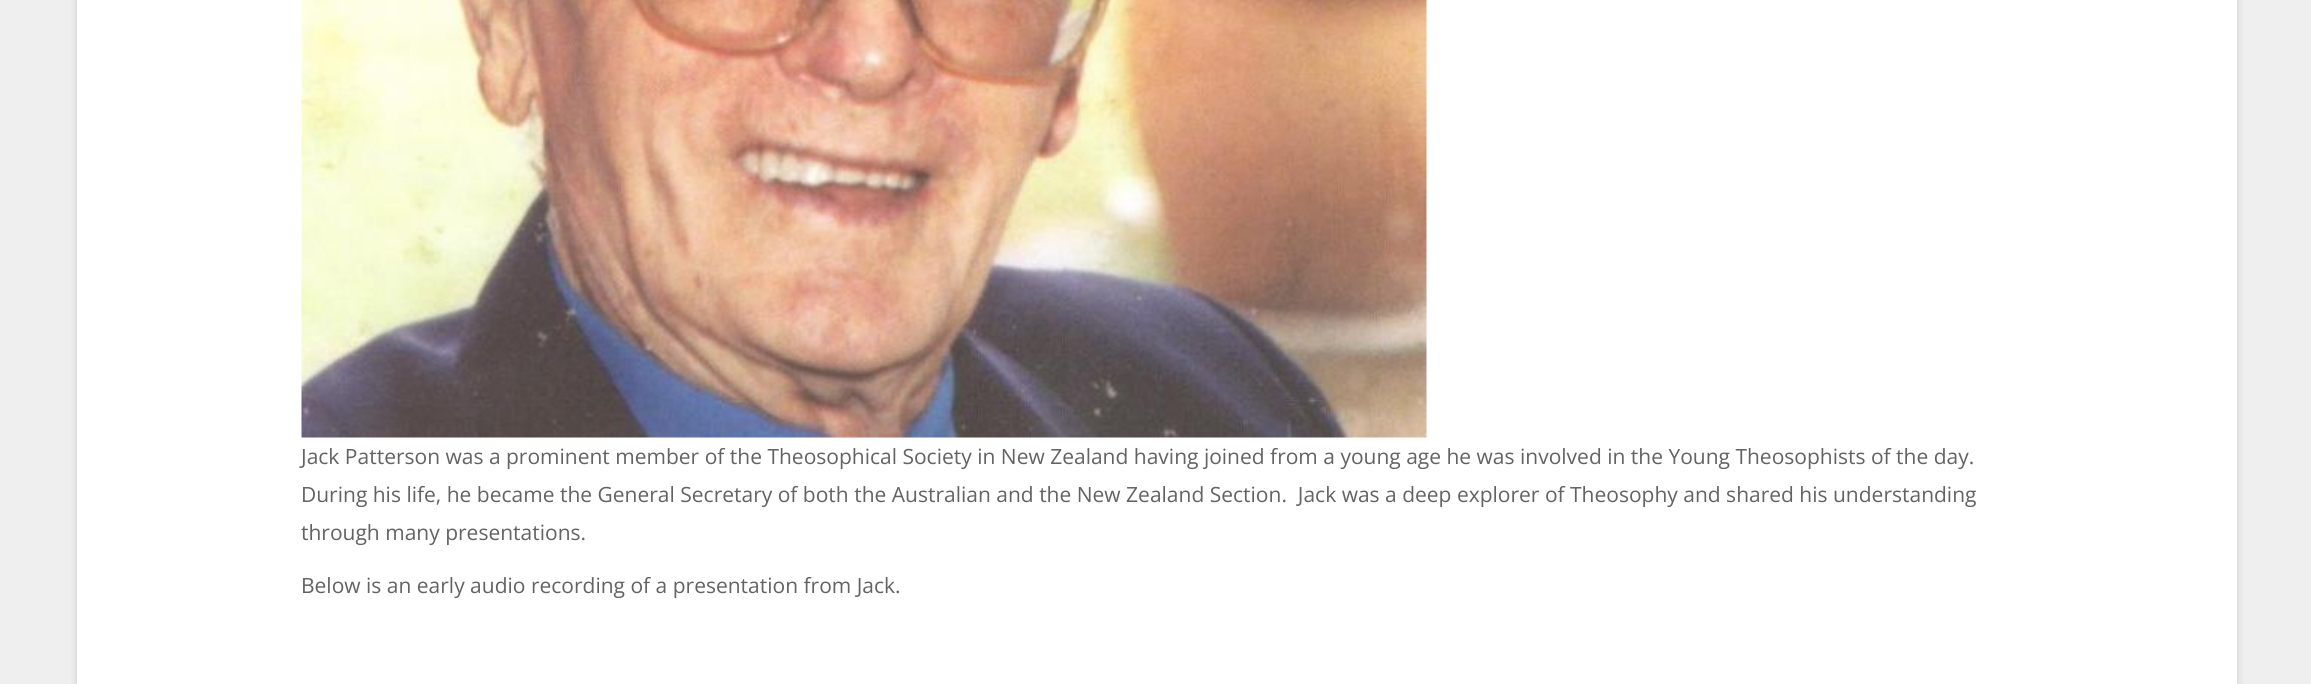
#include <cairo.h>
#include <math.h>
#include <stddef.h>


static void round_rect(cairo_t *cr, double x, double y, double w, double h, double r) {
    cairo_new_sub_path(cr);
    cairo_arc(cr, x + w - r, y + h - r, r, 0, M_PI / 2);
    cairo_arc(cr, x + r, y + h - r, r, M_PI / 2, M_PI);
    cairo_arc(cr, x + r, y + r, r, M_PI, 1.5 * M_PI);
    cairo_arc(cr, x + w - r, y + r, r, 1.5 * M_PI, 2 * M_PI);
    cairo_close_path(cr);
}

static void shadow(cairo_t *cr, double x, double y, double w, double h, double r, double blur, double alpha) {
    cairo_push_group_with_content(cr, CAIRO_CONTENT_ALPHA);
    cairo_set_operator(cr, CAIRO_OPERATOR_SOURCE);
    for (int i = 15; i >= -15 && fmin(w, h) + blur * i / 3 > 0; i -= 2) {
        double e = blur * i / 6;
        cairo_set_source_rgba(cr, 0, 0, 0, alpha * erfc((i - 1) / 8.5) / 2);
        round_rect(cr, x - e, y - e, w + 2 * e, h + 2 * e, fmax(0, fmin(r + e + blur * .6, fmin(w, h) / 2 + e)));
        cairo_fill(cr);
    }
    cairo_pattern_t *soft = cairo_pop_group(cr);
    cairo_mask(cr, soft);
    cairo_pattern_destroy(soft);
}

static void picture(cairo_t *cr, const char *path, double x, double y, double w, double h) {
    cairo_surface_t *image = cairo_image_surface_create_from_png(path);
    cairo_save(cr);
    cairo_set_source_surface(cr, image, x, y);
    cairo_rectangle(cr, x, y, w, h);
    cairo_fill(cr);
    cairo_restore(cr);
    cairo_surface_destroy(image);
}

int main(void) {
    cairo_surface_t *surface = cairo_image_surface_create(CAIRO_FORMAT_RGB24, 2311, 684);
    cairo_t *cr = cairo_create(surface);
    cairo_font_options_t *options = cairo_font_options_create();
    cairo_font_options_set_hint_metrics(options, CAIRO_HINT_METRICS_OFF);
    cairo_font_options_set_hint_style(options, CAIRO_HINT_STYLE_NONE);
    cairo_set_font_options(cr, options);
    cairo_set_miter_limit(cr, 4);
    cairo_set_source_rgb(cr, 0.937, 0.937, 0.937);
    cairo_paint(cr);
    cairo_set_source_rgb(cr, 0, 0, 0);
    shadow(cr, 77, -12, 2160, 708, 0, 4, 0.15);
    cairo_set_source_rgb(cr, 1, 1, 1);
    cairo_rectangle(cr, 77, 0, 2160, 684);
    cairo_fill(cr);
    picture(cr, "img1.png", 301, 0, 1126, 438);
    cairo_select_font_face(cr, "Open Sans", CAIRO_FONT_SLANT_NORMAL, CAIRO_FONT_WEIGHT_NORMAL);
    cairo_set_font_size(cr, 21);
    cairo_set_source_rgb(cr, 0.388, 0.388, 0.388);
    cairo_move_to(cr, 301, 464);
    cairo_show_text(cr, "Jack Patterson was a prominent member of the Theosophical Society in New Zealand having joined from a young age he was involved in the Young Theosophists of the day.");
    cairo_move_to(cr, 301, 502);
    cairo_show_text(cr, "During his life, he became the General Secretary of both the Australian and the New Zealand Section.  Jack was a deep explorer of Theosophy and shared his understanding");
    cairo_move_to(cr, 301, 540);
    cairo_show_text(cr, "through many presentations.");
    cairo_move_to(cr, 301, 593);
    cairo_show_text(cr, "Below is an early audio recording of a presentation from Jack.");
    cairo_surface_write_to_png(surface, "page.png");
    cairo_font_options_destroy(options);
    cairo_destroy(cr);
    cairo_surface_destroy(surface);
    return 0;
}
